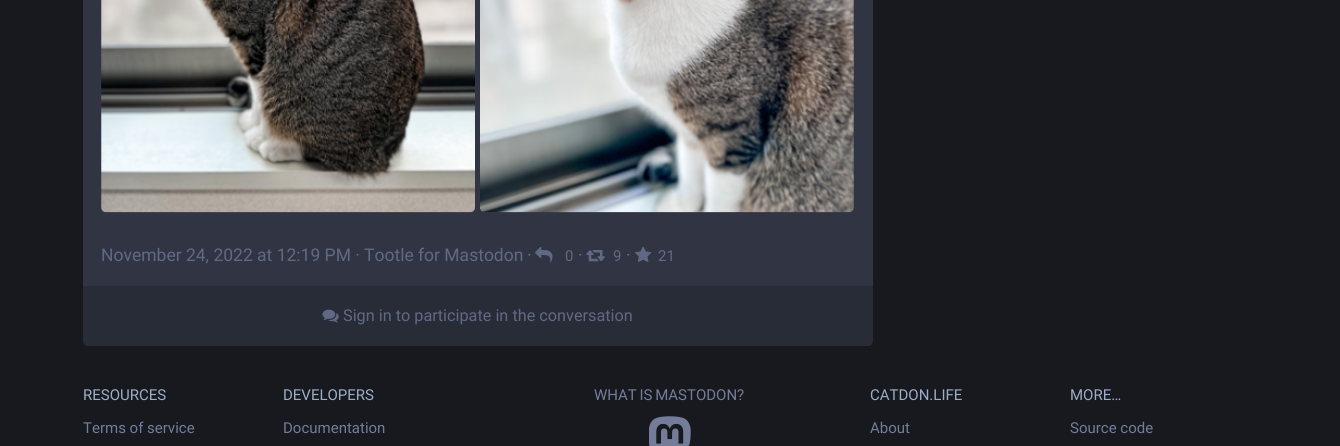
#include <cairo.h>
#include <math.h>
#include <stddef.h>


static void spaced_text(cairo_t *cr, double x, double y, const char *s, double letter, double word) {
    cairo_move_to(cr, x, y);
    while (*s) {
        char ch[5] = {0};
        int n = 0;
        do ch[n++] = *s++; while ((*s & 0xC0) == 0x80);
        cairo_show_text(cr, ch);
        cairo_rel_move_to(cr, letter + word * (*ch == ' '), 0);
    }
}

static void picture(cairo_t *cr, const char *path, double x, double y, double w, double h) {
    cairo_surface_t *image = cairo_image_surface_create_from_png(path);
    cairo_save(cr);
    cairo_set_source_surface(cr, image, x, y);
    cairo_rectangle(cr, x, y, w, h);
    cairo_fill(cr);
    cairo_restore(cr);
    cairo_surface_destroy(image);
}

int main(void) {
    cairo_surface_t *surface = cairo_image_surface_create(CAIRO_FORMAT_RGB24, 1340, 446);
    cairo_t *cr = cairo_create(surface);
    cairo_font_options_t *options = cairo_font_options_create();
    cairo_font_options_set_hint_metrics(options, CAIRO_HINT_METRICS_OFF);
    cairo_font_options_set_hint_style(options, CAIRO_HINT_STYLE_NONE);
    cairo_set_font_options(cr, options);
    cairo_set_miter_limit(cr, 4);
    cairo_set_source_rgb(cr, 0.09, 0.098, 0.122);
    cairo_paint(cr);
    cairo_set_source_rgb(cr, 0.192, 0.208, 0.263);
    cairo_rectangle(cr, 83, 0, 790, 286);
    cairo_fill(cr);
    picture(cr, "img1.png", 101, 0, 374, 213);
    picture(cr, "img2.png", 480, 0, 374, 213);
    cairo_select_font_face(cr, "Roboto", CAIRO_FONT_SLANT_NORMAL, CAIRO_FONT_WEIGHT_NORMAL);
    cairo_set_font_size(cr, 17.5);
    cairo_set_source_rgb(cr, 0.376, 0.412, 0.518);
    cairo_move_to(cr, 101, 261);
    cairo_show_text(cr, "November 24, 2022 at 12:19 PM ·");
    cairo_move_to(cr, 364, 261);
    cairo_show_text(cr, "Tootle for Mastodon");
    cairo_move_to(cr, 527, 261);
    cairo_show_text(cr, "·");
    picture(cr, "img3.png", 535, 247, 18, 16);
    cairo_set_font_size(cr, 15);
    cairo_move_to(cr, 565, 261);
    cairo_show_text(cr, "0");
    cairo_set_font_size(cr, 17.5);
    cairo_move_to(cr, 578, 261);
    cairo_show_text(cr, "·");
    picture(cr, "img4.png", 586, 250, 19, 12);
    cairo_set_font_size(cr, 15);
    cairo_move_to(cr, 613, 261);
    cairo_show_text(cr, "9");
    cairo_set_font_size(cr, 17.5);
    cairo_move_to(cr, 626, 261);
    cairo_show_text(cr, "·");
    picture(cr, "img5.png", 635, 246, 17, 16);
    cairo_set_font_size(cr, 15);
    cairo_move_to(cr, 658, 261);
    cairo_show_text(cr, "21");
    cairo_set_source_rgb(cr, 0.157, 0.173, 0.216);
    cairo_new_path(cr);
    cairo_move_to(cr, 83, 286);
    cairo_line_to(cr, 873, 286);
    cairo_line_to(cr, 873, 341);
    cairo_curve_to(cr, 873, 344, 871, 346, 868, 346);
    cairo_line_to(cr, 88, 346);
    cairo_curve_to(cr, 85, 346, 83, 344, 83, 341);
    cairo_close_path(cr);
    cairo_fill(cr);
    picture(cr, "img6.png", 322, 309, 17, 14);
    cairo_set_font_size(cr, 16.25);
    cairo_set_source_rgb(cr, 0.376, 0.412, 0.518);
    cairo_move_to(cr, 343, 321);
    cairo_show_text(cr, "Sign in to participate in the conversation");
    cairo_set_font_size(cr, 15);
    cairo_set_source_rgb(cr, 0.608, 0.682, 0.784);
    cairo_move_to(cr, 83, 400);
    cairo_show_text(cr, "RESOURCES");
    cairo_set_source_rgb(cr, 0.451, 0.49, 0.6);
    cairo_move_to(cr, 83, 433);
    cairo_show_text(cr, "Terms of service");
    cairo_set_source_rgb(cr, 0.608, 0.682, 0.784);
    cairo_move_to(cr, 283, 400);
    cairo_show_text(cr, "DEVELOPERS");
    cairo_set_source_rgb(cr, 0.451, 0.49, 0.6);
    cairo_move_to(cr, 283, 433);
    cairo_show_text(cr, "Documentation");
    spaced_text(cr, 594, 400, "WHAT IS MASTODON?", 0, -1);
    picture(cr, "img7.png", 649, 416, 42, 30);
    cairo_set_source_rgb(cr, 0.608, 0.682, 0.784);
    cairo_move_to(cr, 870, 400);
    cairo_show_text(cr, "CATDON.LIFE");
    cairo_set_source_rgb(cr, 0.451, 0.49, 0.6);
    cairo_move_to(cr, 870, 433);
    cairo_show_text(cr, "About");
    cairo_set_source_rgb(cr, 0.608, 0.682, 0.784);
    cairo_move_to(cr, 1070, 400);
    cairo_show_text(cr, "MORE…");
    cairo_set_source_rgb(cr, 0.451, 0.49, 0.6);
    cairo_move_to(cr, 1070, 433);
    cairo_show_text(cr, "Source code");
    cairo_surface_write_to_png(surface, "page.png");
    cairo_font_options_destroy(options);
    cairo_destroy(cr);
    cairo_surface_destroy(surface);
    return 0;
}
